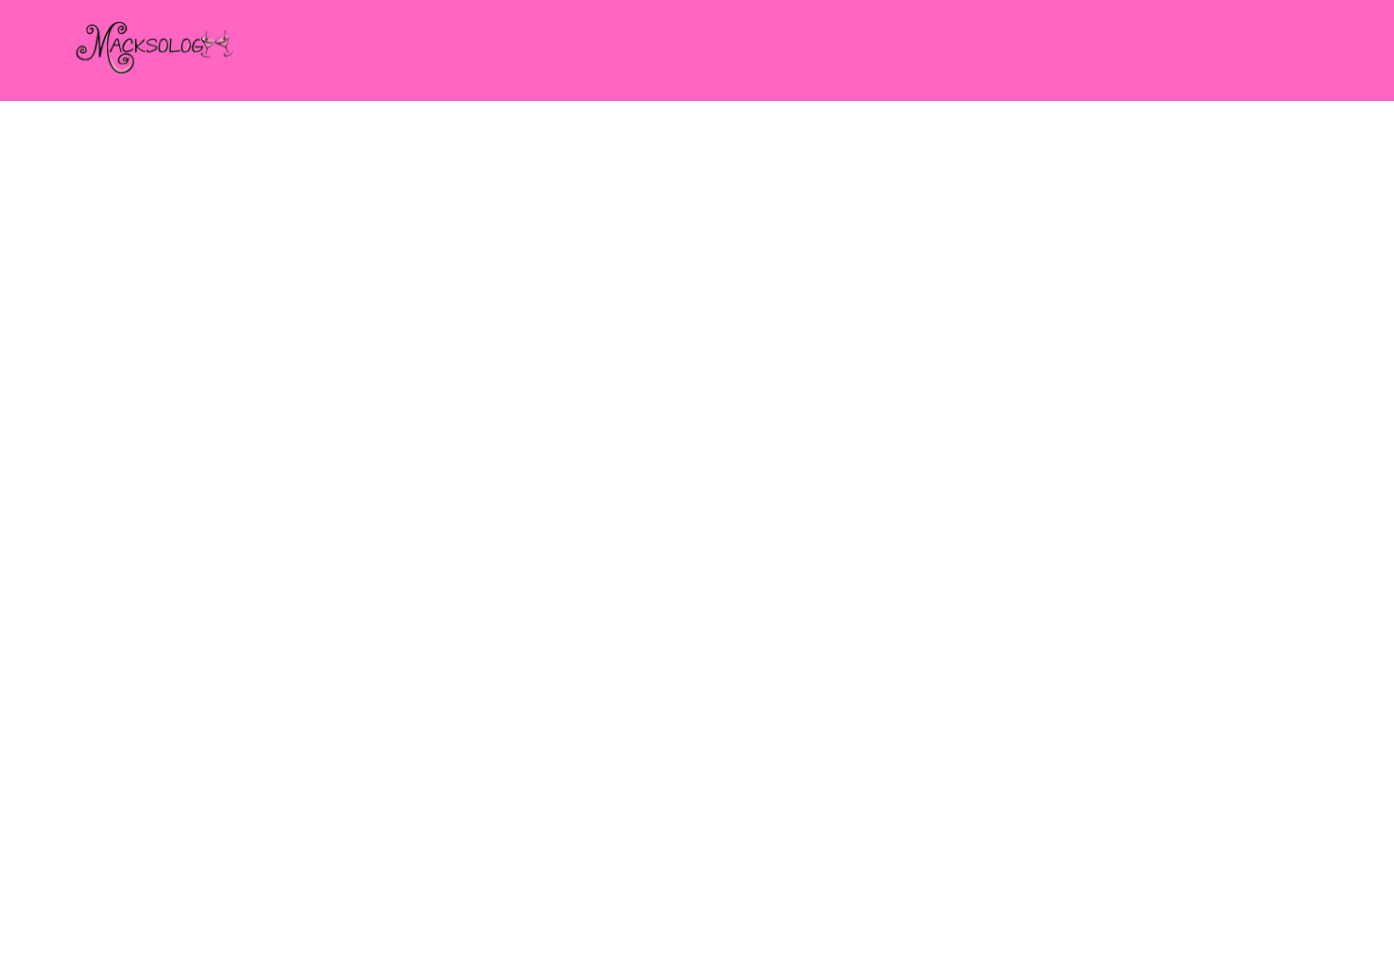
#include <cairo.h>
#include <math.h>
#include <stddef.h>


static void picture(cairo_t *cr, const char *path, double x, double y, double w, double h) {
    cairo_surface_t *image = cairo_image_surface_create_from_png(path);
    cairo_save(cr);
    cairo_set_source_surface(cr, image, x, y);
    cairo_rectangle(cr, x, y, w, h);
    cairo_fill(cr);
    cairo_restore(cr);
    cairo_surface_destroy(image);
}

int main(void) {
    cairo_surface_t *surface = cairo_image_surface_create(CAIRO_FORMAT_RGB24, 1394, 973);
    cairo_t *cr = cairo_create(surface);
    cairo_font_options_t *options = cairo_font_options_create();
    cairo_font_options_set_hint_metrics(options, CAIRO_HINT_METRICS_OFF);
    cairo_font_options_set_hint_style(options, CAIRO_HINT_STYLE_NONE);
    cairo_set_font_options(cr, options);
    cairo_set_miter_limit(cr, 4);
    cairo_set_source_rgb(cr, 1, 1, 1);
    cairo_paint(cr);
    cairo_set_source_rgb(cr, 1, 0.4, 0.769);
    cairo_rectangle(cr, 0, 0, 1394, 100);
    cairo_fill(cr);
    cairo_set_source_rgb(cr, 0.949, 0.38, 0.729);
    cairo_rectangle(cr, 0, 100, 1394, 1);
    cairo_fill(cr);
    picture(cr, "img1.png", 75, 21, 159, 54);
    cairo_surface_write_to_png(surface, "page.png");
    cairo_font_options_destroy(options);
    cairo_destroy(cr);
    cairo_surface_destroy(surface);
    return 0;
}
